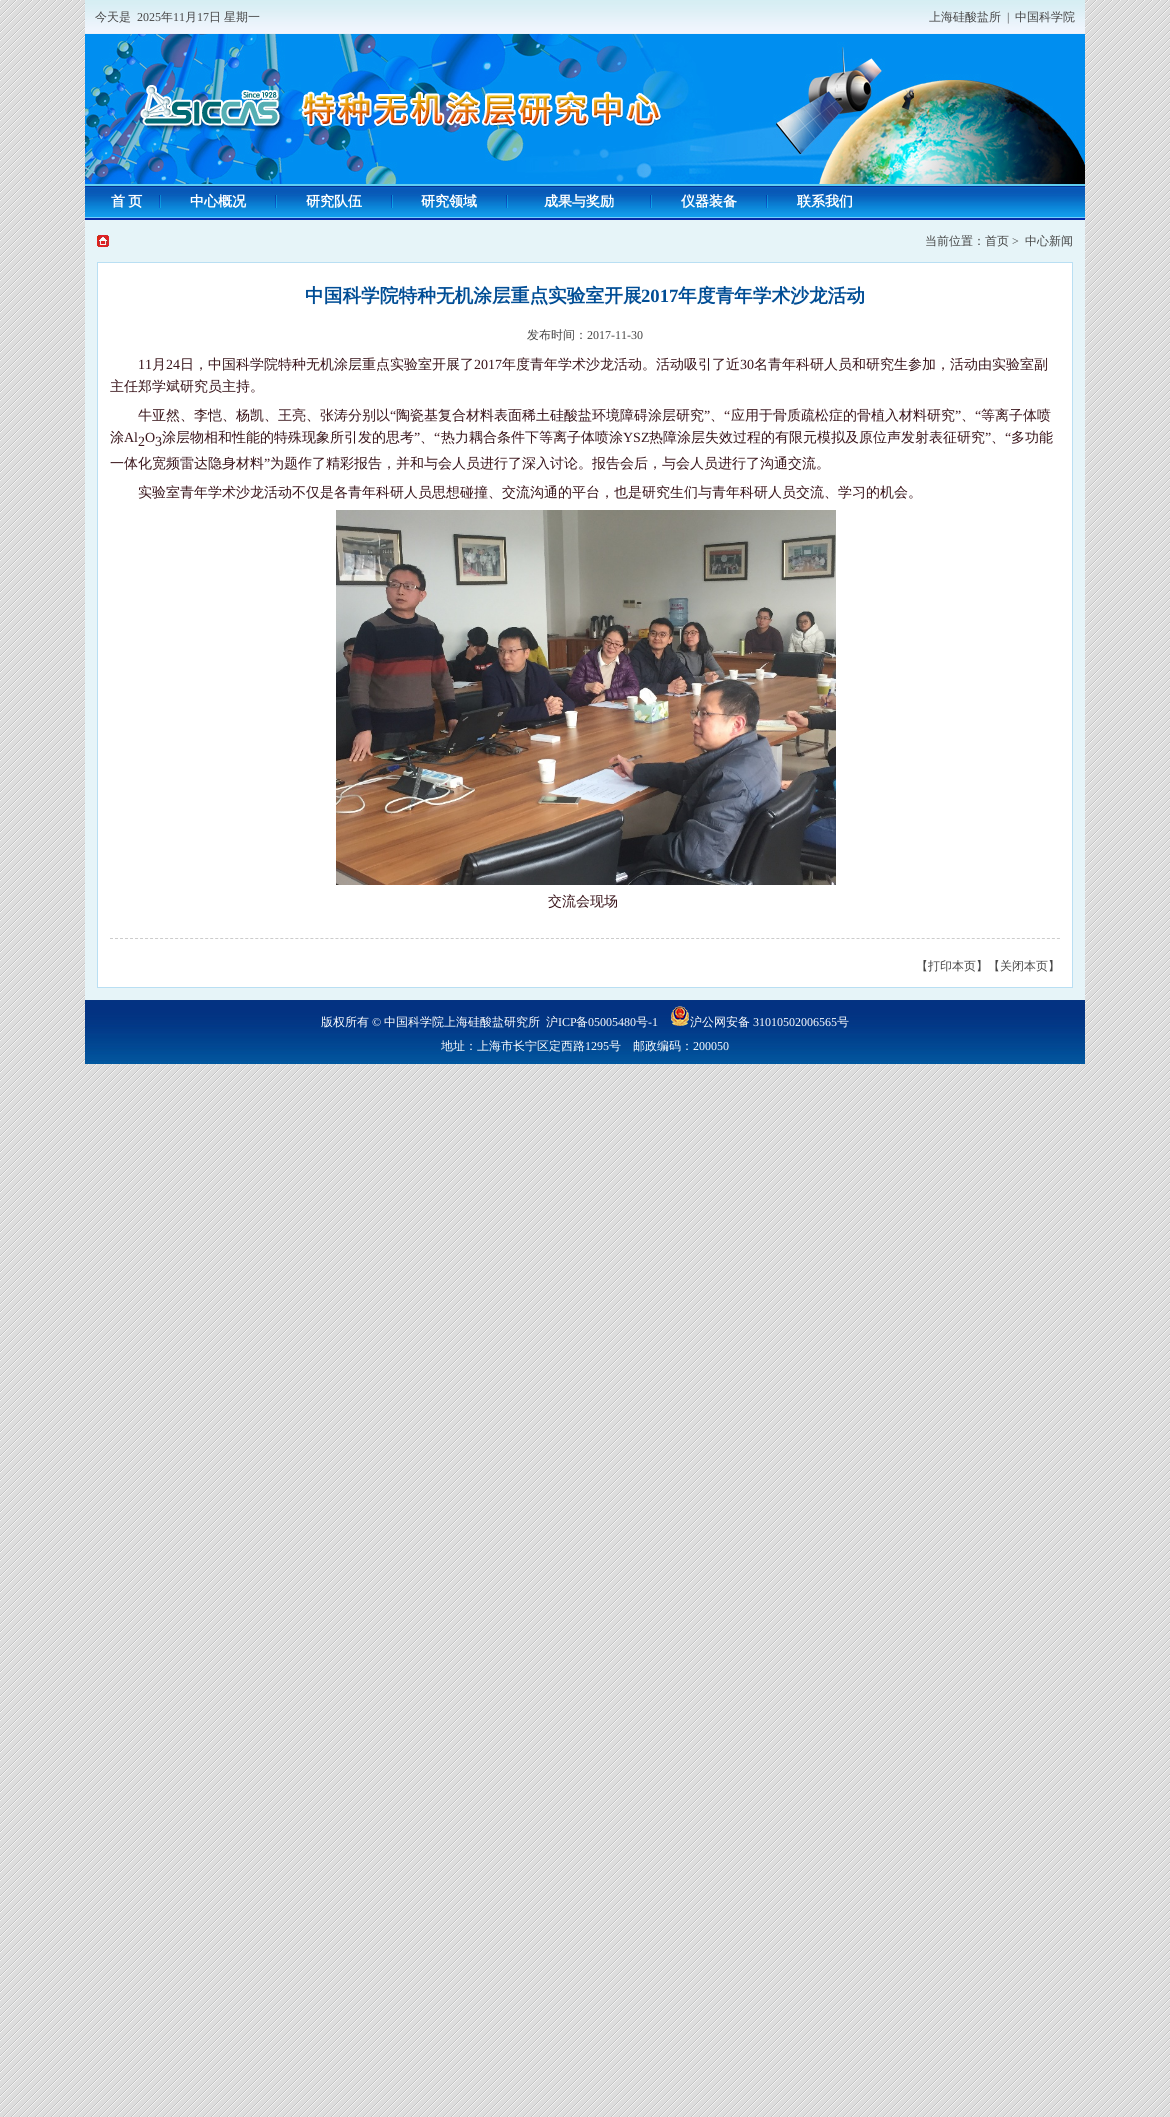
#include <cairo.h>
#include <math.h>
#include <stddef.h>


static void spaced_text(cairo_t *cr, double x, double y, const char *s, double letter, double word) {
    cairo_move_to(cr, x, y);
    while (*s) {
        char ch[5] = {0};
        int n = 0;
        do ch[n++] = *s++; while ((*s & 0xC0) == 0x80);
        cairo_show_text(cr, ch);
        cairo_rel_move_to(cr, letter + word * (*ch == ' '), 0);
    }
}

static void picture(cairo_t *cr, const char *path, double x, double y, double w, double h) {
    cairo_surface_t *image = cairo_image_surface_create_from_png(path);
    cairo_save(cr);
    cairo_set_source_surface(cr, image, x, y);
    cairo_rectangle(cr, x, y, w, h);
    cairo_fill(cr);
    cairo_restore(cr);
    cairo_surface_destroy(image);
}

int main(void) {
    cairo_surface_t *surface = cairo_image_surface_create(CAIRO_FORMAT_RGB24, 1170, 2117);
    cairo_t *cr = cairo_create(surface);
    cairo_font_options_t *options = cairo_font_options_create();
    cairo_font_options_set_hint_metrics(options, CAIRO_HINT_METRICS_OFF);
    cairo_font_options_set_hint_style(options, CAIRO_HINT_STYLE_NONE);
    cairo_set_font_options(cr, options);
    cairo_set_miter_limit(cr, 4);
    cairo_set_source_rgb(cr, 1, 1, 1);
    cairo_paint(cr);
    picture(cr, "img1.png", 0, 0, 1170, 2117);
    picture(cr, "img2.png", 85, 0, 1000, 34);
    cairo_select_font_face(cr, "WenQuanYi Zen Hei Medium", CAIRO_FONT_SLANT_NORMAL, CAIRO_FONT_WEIGHT_NORMAL);
    cairo_set_font_size(cr, 12);
    cairo_set_source_rgb(cr, 0.271, 0.271, 0.271);
    cairo_move_to(cr, 95, 21);
    cairo_show_text(cr, "今天是");
    cairo_select_font_face(cr, "Liberation Serif", CAIRO_FONT_SLANT_NORMAL, CAIRO_FONT_WEIGHT_NORMAL);
    cairo_move_to(cr, 137, 21);
    cairo_show_text(cr, "2025");
    cairo_select_font_face(cr, "WenQuanYi Zen Hei Medium", CAIRO_FONT_SLANT_NORMAL, CAIRO_FONT_WEIGHT_NORMAL);
    cairo_move_to(cr, 161, 21);
    cairo_show_text(cr, "年");
    cairo_select_font_face(cr, "Liberation Serif", CAIRO_FONT_SLANT_NORMAL, CAIRO_FONT_WEIGHT_NORMAL);
    cairo_move_to(cr, 173, 21);
    cairo_show_text(cr, "11");
    cairo_select_font_face(cr, "WenQuanYi Zen Hei Medium", CAIRO_FONT_SLANT_NORMAL, CAIRO_FONT_WEIGHT_NORMAL);
    cairo_move_to(cr, 185, 21);
    cairo_show_text(cr, "月");
    cairo_select_font_face(cr, "Liberation Serif", CAIRO_FONT_SLANT_NORMAL, CAIRO_FONT_WEIGHT_NORMAL);
    cairo_move_to(cr, 197, 21);
    cairo_show_text(cr, "17");
    cairo_select_font_face(cr, "WenQuanYi Zen Hei Medium", CAIRO_FONT_SLANT_NORMAL, CAIRO_FONT_WEIGHT_NORMAL);
    cairo_move_to(cr, 209, 21);
    cairo_show_text(cr, "日");
    cairo_move_to(cr, 224, 21);
    cairo_show_text(cr, "星期一");
    cairo_move_to(cr, 929, 21);
    cairo_show_text(cr, "上海硅酸盐所");
    cairo_select_font_face(cr, "Liberation Serif", CAIRO_FONT_SLANT_NORMAL, CAIRO_FONT_WEIGHT_NORMAL);
    cairo_move_to(cr, 1007, 21);
    cairo_show_text(cr, "|");
    cairo_select_font_face(cr, "WenQuanYi Zen Hei Medium", CAIRO_FONT_SLANT_NORMAL, CAIRO_FONT_WEIGHT_NORMAL);
    cairo_move_to(cr, 1015, 21);
    cairo_show_text(cr, "中国科学院");
    picture(cr, "img3.png", 85, 34, 1000, 150);
    cairo_set_source_rgb(cr, 0.376, 0.808, 0.945);
    cairo_rectangle(cr, 85, 184, 1000, 2);
    cairo_fill(cr);
    picture(cr, "img4.png", 85, 186, 1000, 32);
    cairo_select_font_face(cr, "WenQuanYi Zen Hei", CAIRO_FONT_SLANT_NORMAL, CAIRO_FONT_WEIGHT_BOLD);
    cairo_set_font_size(cr, 14);
    cairo_set_source_rgb(cr, 1, 1, 1);
    spaced_text(cr, 111, 206, "首 页", 0, -1);
    picture(cr, "img5.png", 159, 195, 2, 13);
    cairo_move_to(cr, 190, 206);
    cairo_show_text(cr, "中心概况");
    picture(cr, "img5.png", 275, 195, 2, 13);
    cairo_move_to(cr, 306, 206);
    cairo_show_text(cr, "研究队伍");
    picture(cr, "img5.png", 391, 195, 2, 13);
    cairo_move_to(cr, 421, 206);
    cairo_show_text(cr, "研究领域");
    picture(cr, "img5.png", 506, 195, 2, 13);
    cairo_move_to(cr, 544, 206);
    cairo_show_text(cr, "成果与奖励");
    picture(cr, "img5.png", 650, 195, 2, 13);
    cairo_move_to(cr, 681, 206);
    cairo_show_text(cr, "仪器装备");
    picture(cr, "img5.png", 766, 195, 2, 13);
    cairo_move_to(cr, 797, 206);
    cairo_show_text(cr, "联系我们");
    cairo_set_source_rgb(cr, 0.031, 0.165, 0.651);
    cairo_rectangle(cr, 85, 218, 1000, 2);
    cairo_fill(cr);
    cairo_set_source_rgb(cr, 0.902, 0.957, 0.969);
    cairo_rectangle(cr, 85, 220, 1000, 780);
    cairo_fill(cr);
    picture(cr, "img6.png", 97, 235, 12, 12);
    cairo_select_font_face(cr, "WenQuanYi Zen Hei Medium", CAIRO_FONT_SLANT_NORMAL, CAIRO_FONT_WEIGHT_NORMAL);
    cairo_set_font_size(cr, 12);
    cairo_set_source_rgb(cr, 0.271, 0.271, 0.271);
    cairo_move_to(cr, 925, 245);
    cairo_show_text(cr, "当前位置：首页");
    cairo_select_font_face(cr, "Liberation Serif", CAIRO_FONT_SLANT_NORMAL, CAIRO_FONT_WEIGHT_NORMAL);
    cairo_move_to(cr, 1012, 245);
    cairo_show_text(cr, ">");
    cairo_select_font_face(cr, "WenQuanYi Zen Hei Medium", CAIRO_FONT_SLANT_NORMAL, CAIRO_FONT_WEIGHT_NORMAL);
    cairo_move_to(cr, 1025, 245);
    cairo_show_text(cr, "中心新闻");
    cairo_set_source_rgb(cr, 1, 1, 1);
    cairo_rectangle(cr, 97.5, 262.5, 975, 725);
    cairo_fill_preserve(cr);
    cairo_set_source_rgb(cr, 0.725, 0.875, 0.953);
    cairo_set_line_width(cr, 1);
    cairo_stroke(cr);
    cairo_select_font_face(cr, "WenQuanYi Zen Hei", CAIRO_FONT_SLANT_NORMAL, CAIRO_FONT_WEIGHT_BOLD);
    cairo_set_font_size(cr, 18.7);
    cairo_set_source_rgb(cr, 0, 0.302, 0.584);
    cairo_move_to(cr, 305, 302);
    cairo_show_text(cr, "中国科学院特种无机涂层重点实验室开展");
    cairo_select_font_face(cr, "Liberation Serif", CAIRO_FONT_SLANT_NORMAL, CAIRO_FONT_WEIGHT_BOLD);
    cairo_move_to(cr, 641, 302);
    cairo_show_text(cr, "2017");
    cairo_select_font_face(cr, "WenQuanYi Zen Hei", CAIRO_FONT_SLANT_NORMAL, CAIRO_FONT_WEIGHT_BOLD);
    cairo_move_to(cr, 678, 302);
    cairo_show_text(cr, "年度青年学术沙龙活动");
    cairo_select_font_face(cr, "WenQuanYi Zen Hei Medium", CAIRO_FONT_SLANT_NORMAL, CAIRO_FONT_WEIGHT_NORMAL);
    cairo_set_font_size(cr, 12);
    cairo_set_source_rgb(cr, 0.271, 0.271, 0.271);
    cairo_move_to(cr, 527, 339);
    cairo_show_text(cr, "发布时间：");
    cairo_select_font_face(cr, "Liberation Serif", CAIRO_FONT_SLANT_NORMAL, CAIRO_FONT_WEIGHT_NORMAL);
    cairo_move_to(cr, 587, 339);
    cairo_show_text(cr, "2017-11-30");
    cairo_set_font_size(cr, 14);
    cairo_set_source_rgb(cr, 0.22, 0.075, 0.098);
    cairo_move_to(cr, 138, 369);
    cairo_show_text(cr, "11");
    cairo_select_font_face(cr, "WenQuanYi Zen Hei Medium", CAIRO_FONT_SLANT_NORMAL, CAIRO_FONT_WEIGHT_NORMAL);
    cairo_move_to(cr, 152, 369);
    cairo_show_text(cr, "月");
    cairo_select_font_face(cr, "Liberation Serif", CAIRO_FONT_SLANT_NORMAL, CAIRO_FONT_WEIGHT_NORMAL);
    cairo_move_to(cr, 166, 369);
    cairo_show_text(cr, "24");
    cairo_select_font_face(cr, "WenQuanYi Zen Hei Medium", CAIRO_FONT_SLANT_NORMAL, CAIRO_FONT_WEIGHT_NORMAL);
    cairo_move_to(cr, 180, 369);
    cairo_show_text(cr, "日，中国科学院特种无机涂层重点实验室开展了");
    cairo_select_font_face(cr, "Liberation Serif", CAIRO_FONT_SLANT_NORMAL, CAIRO_FONT_WEIGHT_NORMAL);
    cairo_move_to(cr, 474, 369);
    cairo_show_text(cr, "2017");
    cairo_select_font_face(cr, "WenQuanYi Zen Hei Medium", CAIRO_FONT_SLANT_NORMAL, CAIRO_FONT_WEIGHT_NORMAL);
    cairo_move_to(cr, 502, 369);
    cairo_show_text(cr, "年度青年学术沙龙活动。活动吸引了近");
    cairo_select_font_face(cr, "Liberation Serif", CAIRO_FONT_SLANT_NORMAL, CAIRO_FONT_WEIGHT_NORMAL);
    cairo_move_to(cr, 740, 369);
    cairo_show_text(cr, "30");
    cairo_select_font_face(cr, "WenQuanYi Zen Hei Medium", CAIRO_FONT_SLANT_NORMAL, CAIRO_FONT_WEIGHT_NORMAL);
    cairo_move_to(cr, 754, 369);
    cairo_show_text(cr, "名青年科研人员和研究生参加，活动由实验室副");
    cairo_move_to(cr, 110, 391);
    cairo_show_text(cr, "主任郑学斌研究员主持。");
    cairo_move_to(cr, 138, 420);
    cairo_show_text(cr, "牛亚然、李恺、杨凯、王亮、张涛分别以");
    cairo_select_font_face(cr, "Liberation Serif", CAIRO_FONT_SLANT_NORMAL, CAIRO_FONT_WEIGHT_NORMAL);
    cairo_move_to(cr, 390, 420);
    cairo_show_text(cr, "“");
    cairo_select_font_face(cr, "WenQuanYi Zen Hei Medium", CAIRO_FONT_SLANT_NORMAL, CAIRO_FONT_WEIGHT_NORMAL);
    cairo_move_to(cr, 396, 420);
    cairo_show_text(cr, "陶瓷基复合材料表面稀土硅酸盐环境障碍涂层研究");
    cairo_select_font_face(cr, "Liberation Serif", CAIRO_FONT_SLANT_NORMAL, CAIRO_FONT_WEIGHT_NORMAL);
    cairo_move_to(cr, 704, 420);
    cairo_show_text(cr, "”");
    cairo_move_to(cr, 724, 420);
    cairo_show_text(cr, "“");
    cairo_select_font_face(cr, "WenQuanYi Zen Hei Medium", CAIRO_FONT_SLANT_NORMAL, CAIRO_FONT_WEIGHT_NORMAL);
    cairo_move_to(cr, 731, 420);
    cairo_show_text(cr, "应用于骨质疏松症的骨植入材料研究");
    cairo_select_font_face(cr, "Liberation Serif", CAIRO_FONT_SLANT_NORMAL, CAIRO_FONT_WEIGHT_NORMAL);
    cairo_move_to(cr, 955, 420);
    cairo_show_text(cr, "”");
    cairo_move_to(cr, 975, 420);
    cairo_show_text(cr, "“");
    cairo_select_font_face(cr, "WenQuanYi Zen Hei Medium", CAIRO_FONT_SLANT_NORMAL, CAIRO_FONT_WEIGHT_NORMAL);
    cairo_move_to(cr, 981, 420);
    cairo_show_text(cr, "等离子体喷");
    cairo_move_to(cr, 710, 420);
    cairo_show_text(cr, "、");
    cairo_move_to(cr, 961, 420);
    cairo_show_text(cr, "、");
    cairo_move_to(cr, 110, 442);
    cairo_show_text(cr, "涂");
    cairo_select_font_face(cr, "Liberation Serif", CAIRO_FONT_SLANT_NORMAL, CAIRO_FONT_WEIGHT_NORMAL);
    cairo_move_to(cr, 124, 442);
    cairo_show_text(cr, "Al");
    cairo_move_to(cr, 145, 442);
    cairo_show_text(cr, "O");
    cairo_select_font_face(cr, "WenQuanYi Zen Hei Medium", CAIRO_FONT_SLANT_NORMAL, CAIRO_FONT_WEIGHT_NORMAL);
    cairo_move_to(cr, 162, 442);
    cairo_show_text(cr, "涂层物相和性能的特殊现象所引发的思考");
    cairo_select_font_face(cr, "Liberation Serif", CAIRO_FONT_SLANT_NORMAL, CAIRO_FONT_WEIGHT_NORMAL);
    cairo_move_to(cr, 414, 442);
    cairo_show_text(cr, "”");
    cairo_move_to(cr, 434, 442);
    cairo_show_text(cr, "“");
    cairo_select_font_face(cr, "WenQuanYi Zen Hei Medium", CAIRO_FONT_SLANT_NORMAL, CAIRO_FONT_WEIGHT_NORMAL);
    cairo_move_to(cr, 441, 442);
    cairo_show_text(cr, "热力耦合条件下等离子体喷涂");
    cairo_select_font_face(cr, "Liberation Serif", CAIRO_FONT_SLANT_NORMAL, CAIRO_FONT_WEIGHT_NORMAL);
    cairo_move_to(cr, 623, 442);
    cairo_show_text(cr, "YSZ");
    cairo_select_font_face(cr, "WenQuanYi Zen Hei Medium", CAIRO_FONT_SLANT_NORMAL, CAIRO_FONT_WEIGHT_NORMAL);
    cairo_move_to(cr, 649, 442);
    cairo_show_text(cr, "热障涂层失效过程的有限元模拟及原位声发射表征研究");
    cairo_select_font_face(cr, "Liberation Serif", CAIRO_FONT_SLANT_NORMAL, CAIRO_FONT_WEIGHT_NORMAL);
    cairo_move_to(cr, 985, 442);
    cairo_show_text(cr, "”");
    cairo_move_to(cr, 1005, 442);
    cairo_show_text(cr, "“");
    cairo_select_font_face(cr, "WenQuanYi Zen Hei Medium", CAIRO_FONT_SLANT_NORMAL, CAIRO_FONT_WEIGHT_NORMAL);
    cairo_move_to(cr, 1011, 442);
    cairo_show_text(cr, "多功能");
    cairo_select_font_face(cr, "Liberation Serif", CAIRO_FONT_SLANT_NORMAL, CAIRO_FONT_WEIGHT_NORMAL);
    cairo_move_to(cr, 138, 446);
    cairo_show_text(cr, "2");
    cairo_move_to(cr, 155, 446);
    cairo_show_text(cr, "3");
    cairo_select_font_face(cr, "WenQuanYi Zen Hei Medium", CAIRO_FONT_SLANT_NORMAL, CAIRO_FONT_WEIGHT_NORMAL);
    cairo_move_to(cr, 420, 442);
    cairo_show_text(cr, "、");
    cairo_move_to(cr, 991, 442);
    cairo_show_text(cr, "、");
    cairo_move_to(cr, 110, 468);
    cairo_show_text(cr, "一体化宽频雷达隐身材料");
    cairo_select_font_face(cr, "Liberation Serif", CAIRO_FONT_SLANT_NORMAL, CAIRO_FONT_WEIGHT_NORMAL);
    cairo_move_to(cr, 264, 468);
    cairo_show_text(cr, "”");
    cairo_select_font_face(cr, "WenQuanYi Zen Hei Medium", CAIRO_FONT_SLANT_NORMAL, CAIRO_FONT_WEIGHT_NORMAL);
    cairo_move_to(cr, 270, 468);
    cairo_show_text(cr, "为题作了精彩报告，并和与会人员进行了深入讨论。报告会后，与会人员进行了沟通交流。");
    cairo_move_to(cr, 138, 497);
    cairo_show_text(cr, "实验室青年学术沙龙活动不仅是各青年科研人员思想碰撞、交流沟通的平台，也是研究生们与青年科研人员交流、学习的机会。");
    picture(cr, "img7.png", 336, 510, 500, 375);
    cairo_move_to(cr, 548, 906);
    cairo_show_text(cr, "交流会现场");
    cairo_new_path(cr);
    cairo_move_to(cr, 110, 938.5);
    cairo_line_to(cr, 1060, 938.5);
    cairo_set_source_rgb(cr, 0.8, 0.8, 0.8);
    cairo_set_dash(cr, (double[]){3, 2.01}, 2, 0);
    cairo_stroke(cr);
    cairo_set_font_size(cr, 12);
    cairo_set_source_rgb(cr, 0.271, 0.271, 0.271);
    cairo_move_to(cr, 916, 970);
    cairo_show_text(cr, "【打印本页】【关闭本页】");
    picture(cr, "img8.png", 85, 1000, 1000, 64);
    cairo_set_source_rgb(cr, 1, 1, 1);
    cairo_move_to(cr, 321, 1026);
    cairo_show_text(cr, "版权所有");
    cairo_select_font_face(cr, "Liberation Serif", CAIRO_FONT_SLANT_NORMAL, CAIRO_FONT_WEIGHT_NORMAL);
    cairo_move_to(cr, 372, 1026);
    cairo_show_text(cr, "©");
    cairo_select_font_face(cr, "WenQuanYi Zen Hei Medium", CAIRO_FONT_SLANT_NORMAL, CAIRO_FONT_WEIGHT_NORMAL);
    cairo_move_to(cr, 384, 1026);
    cairo_show_text(cr, "中国科学院上海硅酸盐研究所");
    cairo_move_to(cr, 546, 1026);
    cairo_show_text(cr, "沪");
    cairo_select_font_face(cr, "Liberation Serif", CAIRO_FONT_SLANT_NORMAL, CAIRO_FONT_WEIGHT_NORMAL);
    cairo_move_to(cr, 558, 1026);
    cairo_show_text(cr, "ICP");
    cairo_select_font_face(cr, "WenQuanYi Zen Hei Medium", CAIRO_FONT_SLANT_NORMAL, CAIRO_FONT_WEIGHT_NORMAL);
    cairo_move_to(cr, 576, 1026);
    cairo_show_text(cr, "备");
    cairo_select_font_face(cr, "Liberation Serif", CAIRO_FONT_SLANT_NORMAL, CAIRO_FONT_WEIGHT_NORMAL);
    cairo_move_to(cr, 588, 1026);
    cairo_show_text(cr, "05005480");
    cairo_select_font_face(cr, "WenQuanYi Zen Hei Medium", CAIRO_FONT_SLANT_NORMAL, CAIRO_FONT_WEIGHT_NORMAL);
    cairo_move_to(cr, 636, 1026);
    cairo_show_text(cr, "号");
    cairo_select_font_face(cr, "Liberation Serif", CAIRO_FONT_SLANT_NORMAL, CAIRO_FONT_WEIGHT_NORMAL);
    cairo_move_to(cr, 648, 1026);
    cairo_show_text(cr, "-1");
    picture(cr, "img9.png", 671, 1006, 18, 20);
    cairo_select_font_face(cr, "WenQuanYi Zen Hei Medium", CAIRO_FONT_SLANT_NORMAL, CAIRO_FONT_WEIGHT_NORMAL);
    cairo_move_to(cr, 690, 1026);
    cairo_show_text(cr, "沪公网安备");
    cairo_select_font_face(cr, "Liberation Serif", CAIRO_FONT_SLANT_NORMAL, CAIRO_FONT_WEIGHT_NORMAL);
    cairo_move_to(cr, 753, 1026);
    cairo_show_text(cr, "31010502006565");
    cairo_select_font_face(cr, "WenQuanYi Zen Hei Medium", CAIRO_FONT_SLANT_NORMAL, CAIRO_FONT_WEIGHT_NORMAL);
    cairo_move_to(cr, 837, 1026);
    cairo_show_text(cr, "号");
    cairo_move_to(cr, 441, 1050);
    cairo_show_text(cr, "地址：上海市长宁区定西路");
    cairo_select_font_face(cr, "Liberation Serif", CAIRO_FONT_SLANT_NORMAL, CAIRO_FONT_WEIGHT_NORMAL);
    cairo_move_to(cr, 585, 1050);
    cairo_show_text(cr, "1295");
    cairo_select_font_face(cr, "WenQuanYi Zen Hei Medium", CAIRO_FONT_SLANT_NORMAL, CAIRO_FONT_WEIGHT_NORMAL);
    cairo_move_to(cr, 609, 1050);
    cairo_show_text(cr, "号　邮政编码：");
    cairo_select_font_face(cr, "Liberation Serif", CAIRO_FONT_SLANT_NORMAL, CAIRO_FONT_WEIGHT_NORMAL);
    cairo_move_to(cr, 693, 1050);
    cairo_show_text(cr, "200050");
    cairo_surface_write_to_png(surface, "page.png");
    cairo_font_options_destroy(options);
    cairo_destroy(cr);
    cairo_surface_destroy(surface);
    return 0;
}
